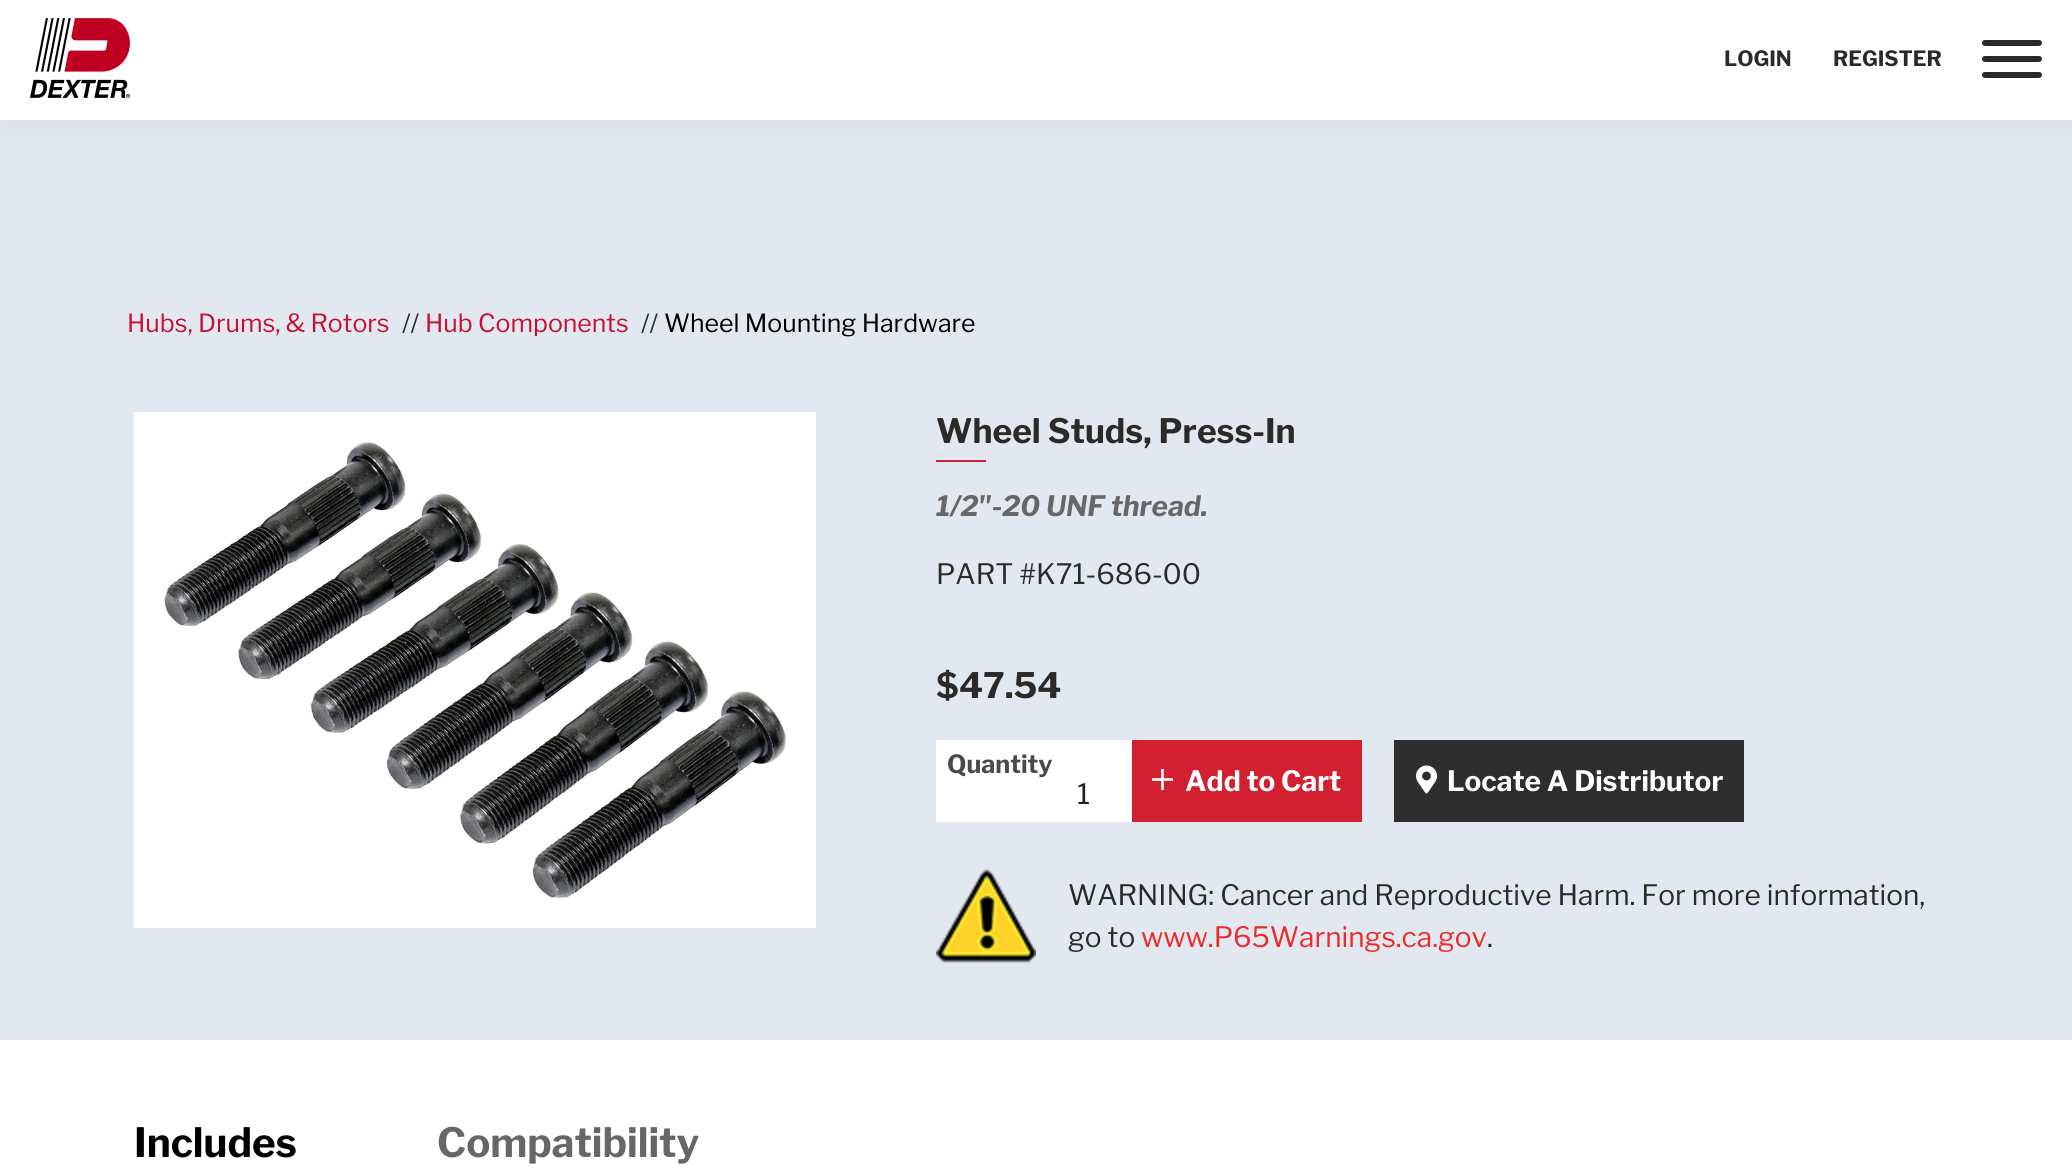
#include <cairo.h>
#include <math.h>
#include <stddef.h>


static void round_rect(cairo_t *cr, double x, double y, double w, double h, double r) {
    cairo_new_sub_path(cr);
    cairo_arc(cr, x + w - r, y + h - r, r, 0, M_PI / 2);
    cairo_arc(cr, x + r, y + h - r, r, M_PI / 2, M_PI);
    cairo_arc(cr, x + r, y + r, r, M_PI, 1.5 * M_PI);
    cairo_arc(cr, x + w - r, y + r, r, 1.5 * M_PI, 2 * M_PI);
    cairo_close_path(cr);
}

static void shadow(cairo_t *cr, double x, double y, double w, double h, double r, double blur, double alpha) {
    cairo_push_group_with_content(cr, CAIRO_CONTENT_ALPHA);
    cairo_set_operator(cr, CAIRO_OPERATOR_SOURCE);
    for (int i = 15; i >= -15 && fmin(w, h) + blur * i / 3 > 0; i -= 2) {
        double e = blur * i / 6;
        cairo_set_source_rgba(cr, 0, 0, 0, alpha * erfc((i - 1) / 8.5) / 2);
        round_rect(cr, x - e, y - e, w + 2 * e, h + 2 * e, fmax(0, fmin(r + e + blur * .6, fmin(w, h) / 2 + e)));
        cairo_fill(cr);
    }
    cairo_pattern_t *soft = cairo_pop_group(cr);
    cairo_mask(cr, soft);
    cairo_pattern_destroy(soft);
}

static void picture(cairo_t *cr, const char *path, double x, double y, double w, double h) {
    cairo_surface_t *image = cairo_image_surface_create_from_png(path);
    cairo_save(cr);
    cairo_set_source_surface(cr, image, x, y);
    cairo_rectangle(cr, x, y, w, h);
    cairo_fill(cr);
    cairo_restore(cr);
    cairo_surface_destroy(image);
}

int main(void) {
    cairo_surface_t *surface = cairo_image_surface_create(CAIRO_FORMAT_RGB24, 2072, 1172);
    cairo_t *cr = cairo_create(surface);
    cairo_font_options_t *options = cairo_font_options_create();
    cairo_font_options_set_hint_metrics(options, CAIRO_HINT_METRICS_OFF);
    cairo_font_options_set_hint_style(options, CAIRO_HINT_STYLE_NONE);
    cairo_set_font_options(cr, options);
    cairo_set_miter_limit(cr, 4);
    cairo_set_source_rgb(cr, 1, 1, 1);
    cairo_paint(cr);
    cairo_set_source_rgb(cr, 0.886, 0.91, 0.937);
    cairo_rectangle(cr, 0, 120, 2072, 920);
    cairo_fill(cr);
    cairo_set_source_rgb(cr, 0, 0, 0);
    shadow(cr, 4, 4, 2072, 120, 0, 15, 0.05);
    cairo_set_source_rgb(cr, 1, 1, 1);
    cairo_rectangle(cr, 0, 0, 2072, 120);
    cairo_fill(cr);
    picture(cr, "img1.png", 30, 18, 100, 80);
    cairo_select_font_face(cr, "Libre Franklin", CAIRO_FONT_SLANT_NORMAL, CAIRO_FONT_WEIGHT_BOLD);
    cairo_set_font_size(cr, 21);
    cairo_set_source_rgb(cr, 0.173, 0.165, 0.161);
    cairo_move_to(cr, 1724, 66);
    cairo_show_text(cr, "LOGIN");
    cairo_move_to(cr, 1833, 66);
    cairo_show_text(cr, "REGISTER");
    round_rect(cr, 1982, 40, 60, 6, 3);
    cairo_fill(cr);
    round_rect(cr, 1982, 56, 60, 6, 3);
    cairo_fill(cr);
    round_rect(cr, 1982, 72, 60, 6, 3);
    cairo_fill(cr);
    cairo_select_font_face(cr, "Libre Franklin", CAIRO_FONT_SLANT_NORMAL, CAIRO_FONT_WEIGHT_NORMAL);
    cairo_set_font_size(cr, 24.9);
    cairo_set_source_rgb(cr, 0.784, 0.063, 0.18);
    cairo_move_to(cr, 127, 332);
    cairo_show_text(cr, "Hubs, Drums, & Rotors");
    cairo_set_source_rgb(cr, 0.173, 0.165, 0.161);
    cairo_move_to(cr, 402, 332);
    cairo_show_text(cr, "//");
    cairo_set_source_rgb(cr, 0.784, 0.063, 0.18);
    cairo_move_to(cr, 425, 332);
    cairo_show_text(cr, "Hub Components");
    cairo_set_source_rgb(cr, 0.173, 0.165, 0.161);
    cairo_move_to(cr, 641, 332);
    cairo_show_text(cr, "//");
    cairo_set_source_rgb(cr, 0, 0, 0);
    cairo_move_to(cr, 664, 332);
    cairo_show_text(cr, "Wheel Mounting Hardware");
    cairo_set_source_rgb(cr, 1, 1, 1);
    cairo_rectangle(cr, 134, 412, 682, 516);
    cairo_fill(cr);
    picture(cr, "img2.png", 164, 442, 622, 456);
    cairo_select_font_face(cr, "Libre Franklin", CAIRO_FONT_SLANT_NORMAL, CAIRO_FONT_WEIGHT_BOLD);
    cairo_set_font_size(cr, 33.6);
    cairo_set_source_rgb(cr, 0.173, 0.165, 0.161);
    cairo_move_to(cr, 936, 443);
    cairo_show_text(cr, "Wheel Studs, Press-In");
    cairo_set_source_rgb(cr, 0.824, 0.125, 0.188);
    cairo_rectangle(cr, 936, 460, 50, 2);
    cairo_fill(cr);
    cairo_select_font_face(cr, "Libre Franklin", CAIRO_FONT_SLANT_ITALIC, CAIRO_FONT_WEIGHT_BOLD);
    cairo_set_font_size(cr, 28);
    cairo_set_source_rgb(cr, 0.404, 0.404, 0.404);
    cairo_move_to(cr, 936, 516);
    cairo_show_text(cr, "1/2\"-20 UNF thread.");
    cairo_select_font_face(cr, "Libre Franklin", CAIRO_FONT_SLANT_NORMAL, CAIRO_FONT_WEIGHT_NORMAL);
    cairo_set_source_rgb(cr, 0.173, 0.165, 0.161);
    cairo_move_to(cr, 936, 584);
    cairo_show_text(cr, "PART #K71-686-00");
    cairo_select_font_face(cr, "Libre Franklin", CAIRO_FONT_SLANT_NORMAL, CAIRO_FONT_WEIGHT_BOLD);
    cairo_set_font_size(cr, 35);
    cairo_move_to(cr, 936, 698);
    cairo_show_text(cr, "$47.54");
    cairo_set_source_rgb(cr, 1, 1, 1);
    cairo_rectangle(cr, 936, 740, 196, 82);
    cairo_fill(cr);
    cairo_set_font_size(cr, 25);
    cairo_set_source_rgb(cr, 0.298, 0.29, 0.286);
    cairo_move_to(cr, 947, 773);
    cairo_show_text(cr, "Quantity");
    cairo_select_font_face(cr, "Libre Franklin", CAIRO_FONT_SLANT_NORMAL, CAIRO_FONT_WEIGHT_NORMAL);
    cairo_set_font_size(cr, 28);
    cairo_set_source_rgb(cr, 0.129, 0.129, 0.129);
    cairo_move_to(cr, 1077, 804);
    cairo_show_text(cr, "1");
    cairo_set_source_rgb(cr, 0.824, 0.125, 0.188);
    cairo_rectangle(cr, 1132, 740, 230, 82);
    cairo_fill(cr);
    picture(cr, "img3.png", 1152, 769, 21, 21);
    cairo_select_font_face(cr, "Libre Franklin", CAIRO_FONT_SLANT_NORMAL, CAIRO_FONT_WEIGHT_BOLD);
    cairo_set_source_rgb(cr, 1, 1, 1);
    cairo_move_to(cr, 1185, 791);
    cairo_show_text(cr, "Add to Cart");
    cairo_set_source_rgb(cr, 0.18, 0.18, 0.18);
    cairo_rectangle(cr, 1394, 740, 350, 82);
    cairo_fill(cr);
    picture(cr, "img4.png", 1416, 765, 21, 29);
    cairo_set_source_rgb(cr, 1, 1, 1);
    cairo_move_to(cr, 1447, 791);
    cairo_show_text(cr, "Locate A Distributor");
    picture(cr, "img5.png", 936, 869, 100, 94);
    cairo_select_font_face(cr, "Libre Franklin", CAIRO_FONT_SLANT_NORMAL, CAIRO_FONT_WEIGHT_NORMAL);
    cairo_set_source_rgb(cr, 0.173, 0.165, 0.161);
    cairo_move_to(cr, 1068, 905);
    cairo_show_text(cr, "WARNING: Cancer and Reproductive Harm. For more information,");
    cairo_move_to(cr, 1068, 947);
    cairo_show_text(cr, "go to");
    cairo_set_source_rgb(cr, 0.933, 0.165, 0.157);
    cairo_move_to(cr, 1141, 947);
    cairo_show_text(cr, "www.P65Warnings.ca.gov");
    cairo_set_source_rgb(cr, 0.173, 0.165, 0.161);
    cairo_move_to(cr, 1487, 947);
    cairo_show_text(cr, ".");
    cairo_select_font_face(cr, "Libre Franklin", CAIRO_FONT_SLANT_NORMAL, CAIRO_FONT_WEIGHT_BOLD);
    cairo_set_font_size(cr, 40.25);
    cairo_set_source_rgb(cr, 0, 0, 0);
    cairo_move_to(cr, 134, 1157);
    cairo_show_text(cr, "Includes");
    cairo_set_source_rgb(cr, 0.404, 0.404, 0.404);
    cairo_move_to(cr, 437, 1157);
    cairo_show_text(cr, "Compatibility");
    cairo_surface_write_to_png(surface, "page.png");
    cairo_font_options_destroy(options);
    cairo_destroy(cr);
    cairo_surface_destroy(surface);
    return 0;
}
